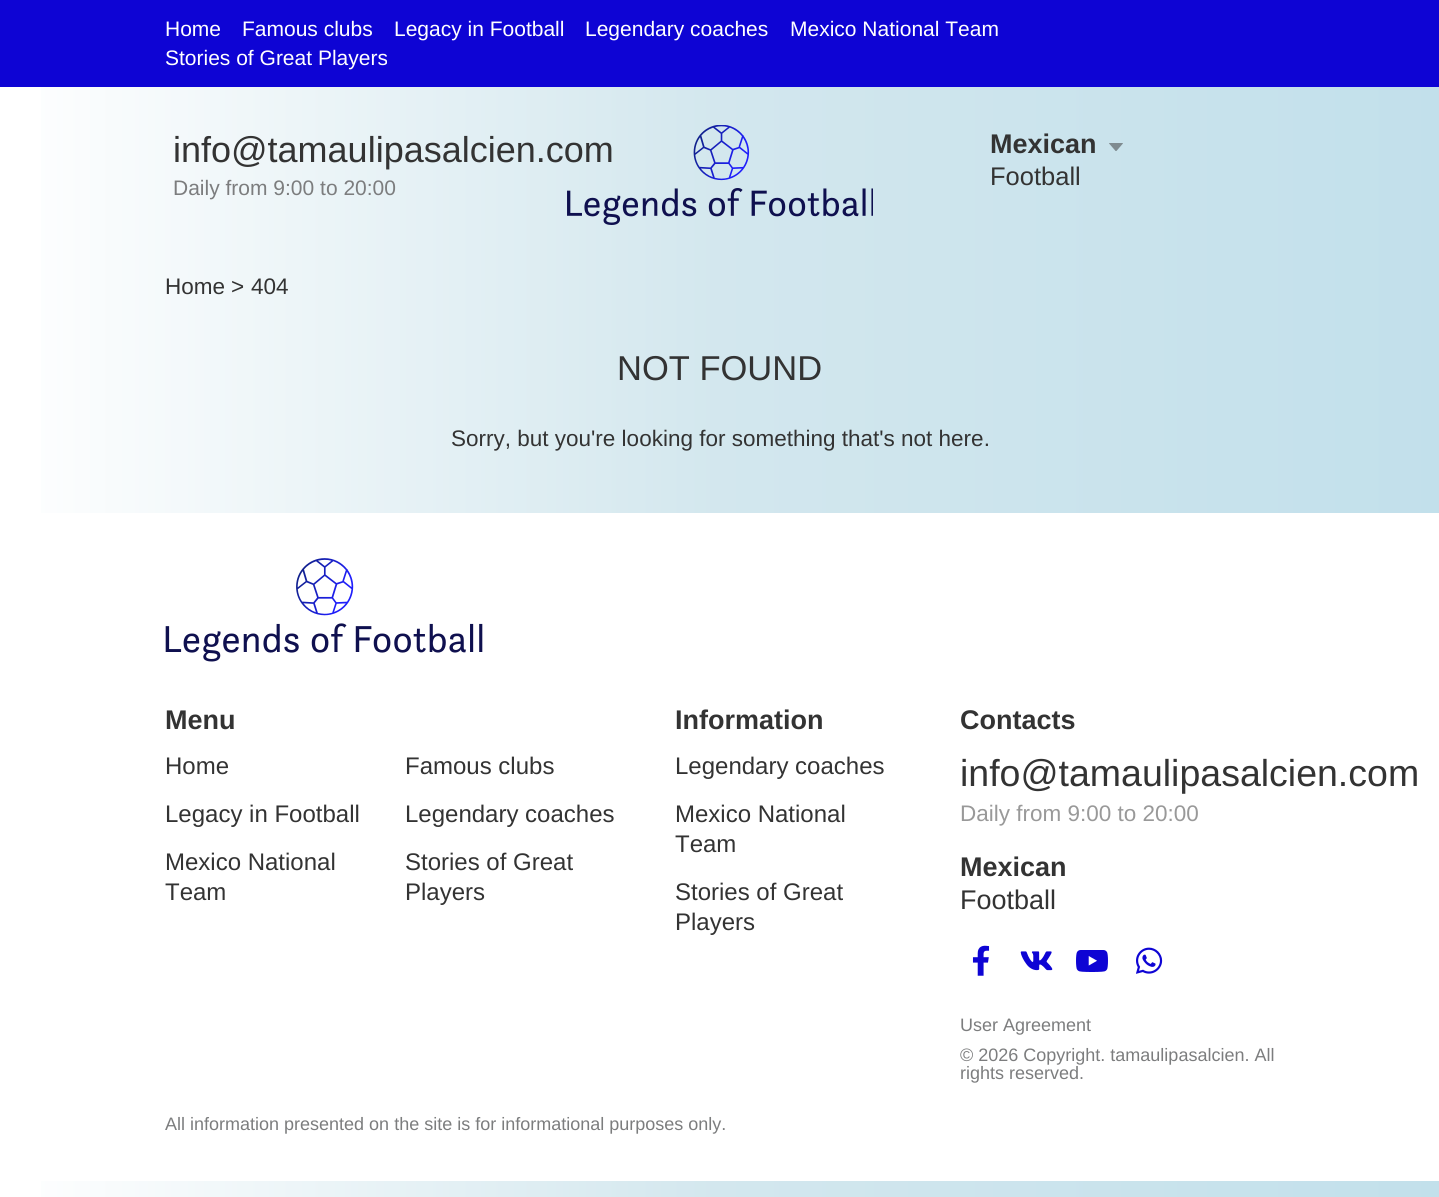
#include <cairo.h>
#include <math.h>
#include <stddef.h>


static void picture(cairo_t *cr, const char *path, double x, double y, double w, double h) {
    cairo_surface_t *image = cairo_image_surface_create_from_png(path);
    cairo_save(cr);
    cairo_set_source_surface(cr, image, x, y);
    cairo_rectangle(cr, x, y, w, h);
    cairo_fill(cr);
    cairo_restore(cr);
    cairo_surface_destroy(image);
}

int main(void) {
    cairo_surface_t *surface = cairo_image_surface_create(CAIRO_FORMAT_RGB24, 1439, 1197);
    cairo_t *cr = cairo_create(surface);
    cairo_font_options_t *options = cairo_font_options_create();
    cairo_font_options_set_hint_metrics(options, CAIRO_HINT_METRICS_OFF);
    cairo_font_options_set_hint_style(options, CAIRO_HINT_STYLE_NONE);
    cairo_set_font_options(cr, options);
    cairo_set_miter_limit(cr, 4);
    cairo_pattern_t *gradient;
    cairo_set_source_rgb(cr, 1, 1, 1);
    cairo_paint(cr);
    gradient = cairo_pattern_create_linear(0, 590, 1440, 590);
    cairo_pattern_add_color_stop_rgba(gradient, 0, 1, 1, 1, 1);
    cairo_pattern_add_color_stop_rgba(gradient, 0.5, 0.827, 0.906, 0.933, 1);
    cairo_pattern_add_color_stop_rgba(gradient, 1, 0.761, 0.878, 0.922, 1);
    cairo_set_source(cr, gradient);
    cairo_pattern_destroy(gradient);
    cairo_rectangle(cr, 41, 87, 1398, 1110);
    cairo_fill(cr);
    cairo_set_source_rgb(cr, 0.055, 0.016, 0.831);
    cairo_rectangle(cr, 0, 0, 1439, 87);
    cairo_fill(cr);
    cairo_select_font_face(cr, "Liberation Sans", CAIRO_FONT_SLANT_NORMAL, CAIRO_FONT_WEIGHT_NORMAL);
    cairo_set_font_size(cr, 21);
    cairo_set_source_rgb(cr, 1, 1, 1);
    cairo_move_to(cr, 165, 36);
    cairo_show_text(cr, "Home");
    cairo_move_to(cr, 242, 36);
    cairo_show_text(cr, "Famous clubs");
    cairo_move_to(cr, 394, 36);
    cairo_show_text(cr, "Legacy in Football");
    cairo_move_to(cr, 585, 36);
    cairo_show_text(cr, "Legendary coaches");
    cairo_move_to(cr, 790, 36);
    cairo_show_text(cr, "Mexico National Team");
    cairo_move_to(cr, 165, 65);
    cairo_show_text(cr, "Stories of Great Players");
    cairo_set_font_size(cr, 36);
    cairo_set_source_rgb(cr, 0.2, 0.2, 0.2);
    cairo_move_to(cr, 173, 162);
    cairo_show_text(cr, "info@tamaulipasalcien.com");
    cairo_set_font_size(cr, 21);
    cairo_set_source_rgb(cr, 0.486, 0.49, 0.494);
    cairo_move_to(cr, 173, 195);
    cairo_show_text(cr, "Daily from 9:00 to 20:00");
    picture(cr, "img1.png", 567, 125, 306, 100);
    cairo_select_font_face(cr, "Liberation Sans", CAIRO_FONT_SLANT_NORMAL, CAIRO_FONT_WEIGHT_BOLD);
    cairo_set_font_size(cr, 27);
    cairo_set_source_rgb(cr, 0.2, 0.2, 0.2);
    cairo_move_to(cr, 990, 153);
    cairo_show_text(cr, "Mexican");
    picture(cr, "img2.png", 1109, 143, 14, 8);
    cairo_select_font_face(cr, "Liberation Sans", CAIRO_FONT_SLANT_NORMAL, CAIRO_FONT_WEIGHT_NORMAL);
    cairo_set_font_size(cr, 25.5);
    cairo_move_to(cr, 990, 185);
    cairo_show_text(cr, "Football");
    cairo_set_font_size(cr, 22.5);
    cairo_move_to(cr, 165, 294);
    cairo_show_text(cr, "Home");
    cairo_move_to(cr, 231, 294);
    cairo_show_text(cr, ">");
    cairo_move_to(cr, 251, 294);
    cairo_show_text(cr, "404");
    cairo_set_font_size(cr, 34.5);
    cairo_move_to(cr, 617, 380);
    cairo_show_text(cr, "NOT FOUND");
    cairo_set_font_size(cr, 22.5);
    cairo_move_to(cr, 451, 446);
    cairo_show_text(cr, "Sorry, but you're looking for something that's not here.");
    cairo_set_source_rgb(cr, 1, 1, 1);
    cairo_rectangle(cr, 41, 513, 1398, 668);
    cairo_fill(cr);
    picture(cr, "img3.png", 165, 558, 318, 104);
    cairo_select_font_face(cr, "Liberation Sans", CAIRO_FONT_SLANT_NORMAL, CAIRO_FONT_WEIGHT_BOLD);
    cairo_set_font_size(cr, 27);
    cairo_set_source_rgb(cr, 0.2, 0.2, 0.2);
    cairo_move_to(cr, 165, 729);
    cairo_show_text(cr, "Menu");
    cairo_select_font_face(cr, "Liberation Sans", CAIRO_FONT_SLANT_NORMAL, CAIRO_FONT_WEIGHT_NORMAL);
    cairo_set_font_size(cr, 24);
    cairo_move_to(cr, 165, 774);
    cairo_show_text(cr, "Home");
    cairo_move_to(cr, 405, 774);
    cairo_show_text(cr, "Famous clubs");
    cairo_move_to(cr, 165, 822);
    cairo_show_text(cr, "Legacy in Football");
    cairo_move_to(cr, 405, 822);
    cairo_show_text(cr, "Legendary coaches");
    cairo_move_to(cr, 165, 870);
    cairo_show_text(cr, "Mexico National");
    cairo_move_to(cr, 165, 900);
    cairo_show_text(cr, "Team");
    cairo_move_to(cr, 405, 870);
    cairo_show_text(cr, "Stories of Great");
    cairo_move_to(cr, 405, 900);
    cairo_show_text(cr, "Players");
    cairo_select_font_face(cr, "Liberation Sans", CAIRO_FONT_SLANT_NORMAL, CAIRO_FONT_WEIGHT_BOLD);
    cairo_set_font_size(cr, 27);
    cairo_move_to(cr, 675, 729);
    cairo_show_text(cr, "Information");
    cairo_select_font_face(cr, "Liberation Sans", CAIRO_FONT_SLANT_NORMAL, CAIRO_FONT_WEIGHT_NORMAL);
    cairo_set_font_size(cr, 24);
    cairo_move_to(cr, 675, 774);
    cairo_show_text(cr, "Legendary coaches");
    cairo_move_to(cr, 675, 822);
    cairo_show_text(cr, "Mexico National");
    cairo_move_to(cr, 675, 852);
    cairo_show_text(cr, "Team");
    cairo_move_to(cr, 675, 900);
    cairo_show_text(cr, "Stories of Great");
    cairo_move_to(cr, 675, 930);
    cairo_show_text(cr, "Players");
    cairo_select_font_face(cr, "Liberation Sans", CAIRO_FONT_SLANT_NORMAL, CAIRO_FONT_WEIGHT_BOLD);
    cairo_set_font_size(cr, 27);
    cairo_move_to(cr, 960, 729);
    cairo_show_text(cr, "Contacts");
    cairo_select_font_face(cr, "Liberation Sans", CAIRO_FONT_SLANT_NORMAL, CAIRO_FONT_WEIGHT_NORMAL);
    cairo_set_font_size(cr, 37.5);
    cairo_move_to(cr, 960, 786);
    cairo_show_text(cr, "info@tamaulipasalcien.com");
    cairo_set_font_size(cr, 22.5);
    cairo_set_source_rgb(cr, 0.6, 0.6, 0.6);
    cairo_move_to(cr, 960, 821);
    cairo_show_text(cr, "Daily from 9:00 to 20:00");
    cairo_select_font_face(cr, "Liberation Sans", CAIRO_FONT_SLANT_NORMAL, CAIRO_FONT_WEIGHT_BOLD);
    cairo_set_font_size(cr, 27);
    cairo_set_source_rgb(cr, 0.2, 0.2, 0.2);
    cairo_move_to(cr, 960, 876);
    cairo_show_text(cr, "Mexican");
    cairo_select_font_face(cr, "Liberation Sans", CAIRO_FONT_SLANT_NORMAL, CAIRO_FONT_WEIGHT_NORMAL);
    cairo_move_to(cr, 960, 909);
    cairo_show_text(cr, "Football");
    picture(cr, "img4.png", 972, 945, 18, 31);
    picture(cr, "img5.png", 1020, 951, 33, 20);
    picture(cr, "img6.png", 1076, 950, 32, 22);
    picture(cr, "img7.png", 1136, 947, 27, 27);
    cairo_set_font_size(cr, 18);
    cairo_set_source_rgb(cr, 0.486, 0.49, 0.494);
    cairo_move_to(cr, 960, 1031);
    cairo_show_text(cr, "User Agreement");
    cairo_move_to(cr, 960, 1061);
    cairo_show_text(cr, "© 2026 Copyright. tamaulipasalcien. All");
    cairo_move_to(cr, 960, 1079);
    cairo_show_text(cr, "rights reserved.");
    cairo_move_to(cr, 165, 1130);
    cairo_show_text(cr, "All information presented on the site is for informational purposes only.");
    cairo_surface_write_to_png(surface, "page.png");
    cairo_font_options_destroy(options);
    cairo_destroy(cr);
    cairo_surface_destroy(surface);
    return 0;
}
